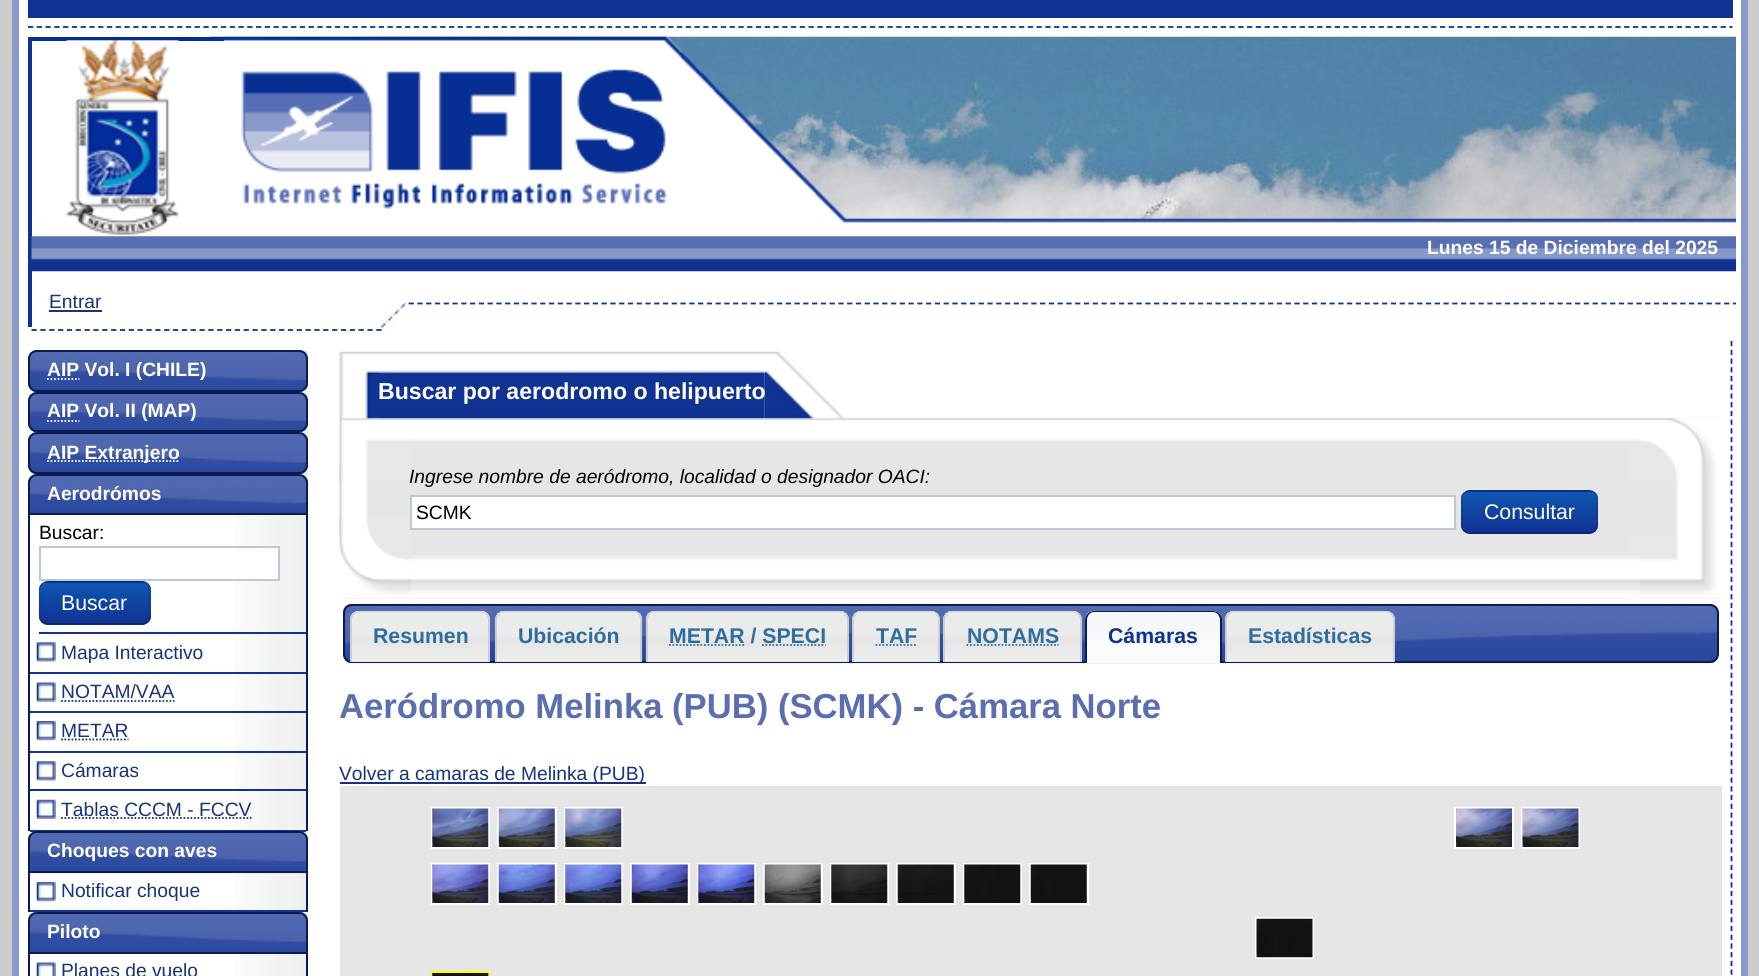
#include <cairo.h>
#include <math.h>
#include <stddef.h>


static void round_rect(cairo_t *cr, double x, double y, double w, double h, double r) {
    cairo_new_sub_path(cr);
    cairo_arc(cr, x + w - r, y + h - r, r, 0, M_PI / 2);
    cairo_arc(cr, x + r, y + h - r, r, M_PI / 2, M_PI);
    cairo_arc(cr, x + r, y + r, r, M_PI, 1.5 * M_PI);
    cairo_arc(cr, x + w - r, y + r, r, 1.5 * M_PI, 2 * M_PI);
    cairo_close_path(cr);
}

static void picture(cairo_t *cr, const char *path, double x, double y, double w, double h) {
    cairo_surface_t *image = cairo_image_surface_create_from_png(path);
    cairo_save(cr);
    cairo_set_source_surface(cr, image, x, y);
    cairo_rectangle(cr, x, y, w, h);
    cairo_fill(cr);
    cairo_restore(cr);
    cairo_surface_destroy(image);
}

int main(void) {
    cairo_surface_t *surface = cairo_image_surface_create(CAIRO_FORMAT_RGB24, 1759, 976);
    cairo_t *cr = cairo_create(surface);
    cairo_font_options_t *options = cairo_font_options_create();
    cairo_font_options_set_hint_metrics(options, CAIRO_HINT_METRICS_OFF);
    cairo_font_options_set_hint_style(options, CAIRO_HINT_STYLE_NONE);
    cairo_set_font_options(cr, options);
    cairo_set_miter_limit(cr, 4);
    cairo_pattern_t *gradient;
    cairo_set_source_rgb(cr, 0.8, 0.8, 0.8);
    cairo_paint(cr);
    cairo_set_source_rgb(cr, 1, 1, 1);
    cairo_rectangle(cr, 19, 0, 1722, 976);
    cairo_fill(cr);
    cairo_set_source_rgb(cr, 0.533, 0.596, 0.788);
    cairo_rectangle(cr, 1741, 0, 7, 976);
    cairo_fill(cr);
    cairo_rectangle(cr, 12, 0, 7, 976);
    cairo_fill(cr);
    cairo_set_source_rgb(cr, 0.063, 0.196, 0.576);
    cairo_rectangle(cr, 28, 0, 1705, 18);
    cairo_fill(cr);
    cairo_new_path(cr);
    cairo_move_to(cr, 28, 27);
    cairo_line_to(cr, 1732.5, 27);
    cairo_set_line_width(cr, 1.8);
    cairo_set_dash(cr, (double[]){5.25, 3.52}, 2, 0);
    cairo_stroke(cr);
    cairo_rectangle(cr, 28, 37, 4, 247);
    cairo_fill(cr);
    picture(cr, "img3.png", 224, 36, 1512, 183);
    picture(cr, "img1.png", 210, 36, 1526, 187);
    cairo_set_source_rgb(cr, 0.027, 0.18, 0.576);
    cairo_rectangle(cr, 32, 37, 192, 4);
    cairo_fill(cr);
    picture(cr, "img2.png", 66, 40, 113, 195);
    picture(cr, "img4.png", 31, 236, 1705, 36);
    cairo_select_font_face(cr, "Liberation Sans", CAIRO_FONT_SLANT_NORMAL, CAIRO_FONT_WEIGHT_BOLD);
    cairo_set_font_size(cr, 19.25);
    cairo_set_source_rgb(cr, 1, 1, 1);
    cairo_move_to(cr, 1427, 254);
    cairo_show_text(cr, "Lunes 15 de Diciembre del 2025");
    cairo_new_path(cr);
    cairo_move_to(cr, 31.5, 303.5);
    cairo_line_to(cr, 1736, 303.5);
    cairo_set_source_rgb(cr, 0.063, 0.196, 0.576);
    cairo_stroke(cr);
    cairo_set_source_rgb(cr, 1, 1, 1);
    cairo_rectangle(cr, 32, 302, 374, 3);
    cairo_fill(cr);
    picture(cr, "img5.png", 381, 302, 25, 26);
    cairo_set_source_rgb(cr, 0.063, 0.196, 0.576);
    cairo_rectangle(cr, 28, 284, 4, 43);
    cairo_fill(cr);
    cairo_new_path(cr);
    cairo_move_to(cr, 31.5, 330);
    cairo_line_to(cr, 381.5, 330);
    cairo_set_dash(cr, (double[]){5.25, 3.59}, 2, 0);
    cairo_stroke(cr);
    cairo_select_font_face(cr, "Liberation Sans", CAIRO_FONT_SLANT_NORMAL, CAIRO_FONT_WEIGHT_NORMAL);
    cairo_set_source_rgb(cr, 0.094, 0.196, 0.486);
    cairo_move_to(cr, 49, 308);
    cairo_show_text(cr, "Entrar");
    cairo_rectangle(cr, 49, 310, 53, 2);
    cairo_fill(cr);
    cairo_new_path(cr);
    cairo_move_to(cr, 1731.5, 341);
    cairo_line_to(cr, 1731.5, 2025);
    cairo_set_source_rgb(cr, 0.063, 0.196, 0.576);
    cairo_set_dash(cr, (double[]){5.25, 3.48}, 2, 0);
    cairo_stroke(cr);
    picture(cr, "img6.png", 235, 350, 73, 626);
    picture(cr, "img7.png", 28, 350, 280, 42);
    round_rect(cr, 29, 351, 278, 40, 8);
    cairo_set_source_rgb(cr, 0.039, 0.114, 0.322);
    cairo_set_line_width(cr, 2);
    cairo_set_dash(cr, NULL, 0, 0);
    cairo_stroke(cr);
    cairo_new_path(cr);
    cairo_move_to(cr, 47, 379);
    cairo_line_to(cr, 79.5, 379);
    cairo_set_source_rgb(cr, 1, 1, 1);
    cairo_set_line_width(cr, 1.8);
    cairo_set_dash(cr, (double[]){1.75, 1.75}, 2, 0);
    cairo_stroke(cr);
    cairo_select_font_face(cr, "Liberation Sans", CAIRO_FONT_SLANT_NORMAL, CAIRO_FONT_WEIGHT_BOLD);
    cairo_move_to(cr, 47, 376);
    cairo_show_text(cr, "AIP Vol. I (CHILE)");
    picture(cr, "img8.png", 28, 392, 280, 41);
    round_rect(cr, 29, 393, 278, 38, 8);
    cairo_set_source_rgb(cr, 0.039, 0.114, 0.322);
    cairo_set_line_width(cr, 2);
    cairo_set_dash(cr, NULL, 0, 0);
    cairo_stroke(cr);
    cairo_new_path(cr);
    cairo_move_to(cr, 47, 421);
    cairo_line_to(cr, 79.5, 421);
    cairo_set_source_rgb(cr, 1, 1, 1);
    cairo_set_line_width(cr, 1.8);
    cairo_set_dash(cr, (double[]){1.75, 1.75}, 2, 0);
    cairo_stroke(cr);
    cairo_move_to(cr, 47, 417);
    cairo_show_text(cr, "AIP Vol. II (MAP)");
    picture(cr, "img9.png", 28, 432, 280, 43);
    round_rect(cr, 29, 433, 278, 40, 8);
    cairo_set_source_rgb(cr, 0.039, 0.114, 0.322);
    cairo_set_line_width(cr, 2);
    cairo_set_dash(cr, NULL, 0, 0);
    cairo_stroke(cr);
    cairo_new_path(cr);
    cairo_move_to(cr, 47, 461);
    cairo_line_to(cr, 180, 461);
    cairo_set_source_rgb(cr, 1, 1, 1);
    cairo_set_line_width(cr, 1.8);
    cairo_set_dash(cr, (double[]){1.75, 1.75}, 2, 0);
    cairo_stroke(cr);
    cairo_move_to(cr, 47, 459);
    cairo_show_text(cr, "AIP Extranjero");
    picture(cr, "img10.png", 28, 474, 280, 39);
    cairo_new_path(cr);
    cairo_move_to(cr, 37, 475);
    cairo_line_to(cr, 299, 475);
    cairo_curve_to(cr, 303.5, 475, 307, 478.5, 307, 483);
    cairo_line_to(cr, 307, 514);
    cairo_line_to(cr, 29, 514);
    cairo_line_to(cr, 29, 483);
    cairo_curve_to(cr, 29, 478.5, 32.5, 475, 37, 475);
    cairo_close_path(cr);
    cairo_set_source_rgb(cr, 0.039, 0.114, 0.322);
    cairo_set_line_width(cr, 2);
    cairo_set_dash(cr, NULL, 0, 0);
    cairo_stroke(cr);
    cairo_set_source_rgb(cr, 1, 1, 1);
    cairo_move_to(cr, 47, 500);
    cairo_show_text(cr, "Aerodrómos");
    cairo_set_source_rgb(cr, 0.039, 0.114, 0.322);
    cairo_rectangle(cr, 306, 515, 2, 316);
    cairo_fill(cr);
    cairo_rectangle(cr, 28, 515, 2, 316);
    cairo_fill(cr);
    cairo_set_source_rgb(cr, 0.063, 0.196, 0.576);
    cairo_rectangle(cr, 39, 632, 267, 2);
    cairo_fill(cr);
    cairo_select_font_face(cr, "Liberation Sans", CAIRO_FONT_SLANT_NORMAL, CAIRO_FONT_WEIGHT_NORMAL);
    cairo_set_source_rgb(cr, 0, 0, 0);
    cairo_move_to(cr, 39, 539);
    cairo_show_text(cr, "Buscar:");
    cairo_set_source_rgb(cr, 1, 1, 1);
    cairo_rectangle(cr, 235, 548, 43, 31);
    cairo_fill(cr);
    cairo_rectangle(cr, 40, 547, 239, 33);
    cairo_set_source_rgb(cr, 0.741, 0.78, 0.847);
    cairo_stroke(cr);
    cairo_set_source_rgb(cr, 0.063, 0.196, 0.576);
    round_rect(cr, 39, 581, 112, 44, 9);
    cairo_fill(cr);
    cairo_save(cr);
    round_rect(cr, 39, 581, 112, 44, 9);
    cairo_clip(cr);
    gradient = cairo_pattern_create_linear(95, 583, 95, 623);
    cairo_pattern_add_color_stop_rgba(gradient, 0, 0.055, 0.341, 0.694, 1);
    cairo_pattern_add_color_stop_rgba(gradient, 1, 0.063, 0.196, 0.576, 1);
    cairo_set_source(cr, gradient);
    cairo_pattern_destroy(gradient);
    cairo_rectangle(cr, 39, 583, 112, 40);
    cairo_fill(cr);
    cairo_restore(cr);
    cairo_new_path(cr);
    cairo_move_to(cr, 147.5, 621.5);
    cairo_curve_to(cr, 146, 623, 144, 624, 142, 624);
    cairo_line_to(cr, 47, 624);
    cairo_curve_to(cr, 45, 624, 43, 623, 41.5, 621.5);
    cairo_set_source_rgba(cr, 0, 0, 0, 0.25);
    cairo_set_line_width(cr, 1.8);
    cairo_stroke(cr);
    cairo_new_path(cr);
    cairo_move_to(cr, 41.5, 621.5);
    cairo_curve_to(cr, 39, 619, 39.5, 615, 39.5, 611.5);
    cairo_line_to(cr, 39.5, 588);
    cairo_curve_to(cr, 41.5, 578.5, 57.5, 582, 63, 582);
    cairo_line_to(cr, 126, 582);
    cairo_curve_to(cr, 150.5, 582, 149.5, 579.5, 149.5, 603);
    cairo_curve_to(cr, 149.5, 607.5, 151.5, 617.5, 147.5, 621.5);
    cairo_set_source_rgba(cr, 0, 0, 0, 0.1);
    cairo_stroke(cr);
    cairo_set_font_size(cr, 21.25);
    cairo_set_source_rgb(cr, 1, 1, 1);
    cairo_move_to(cr, 61, 610);
    cairo_show_text(cr, "Buscar");
    picture(cr, "img11.png", 36, 642, 20, 20);
    cairo_set_source_rgb(cr, 0.063, 0.196, 0.576);
    cairo_rectangle(cr, 30, 672, 276, 2);
    cairo_fill(cr);
    cairo_set_font_size(cr, 19.25);
    cairo_set_source_rgb(cr, 0.094, 0.196, 0.486);
    cairo_move_to(cr, 61, 659);
    cairo_show_text(cr, "Mapa Interactivo");
    picture(cr, "img12.png", 36, 682, 20, 20);
    cairo_set_source_rgb(cr, 0.063, 0.196, 0.576);
    cairo_rectangle(cr, 30, 711, 276, 2);
    cairo_fill(cr);
    cairo_set_source_rgb(cr, 0.094, 0.196, 0.486);
    cairo_move_to(cr, 61, 698);
    cairo_show_text(cr, "NOTAM/VAA");
    cairo_new_path(cr);
    cairo_move_to(cr, 61, 701);
    cairo_line_to(cr, 174.5, 701);
    cairo_set_dash(cr, (double[]){1.75, 1.75}, 2, 0);
    cairo_stroke(cr);
    picture(cr, "img13.png", 36, 721, 20, 20);
    cairo_set_source_rgb(cr, 0.063, 0.196, 0.576);
    cairo_rectangle(cr, 30, 751, 276, 2);
    cairo_fill(cr);
    cairo_set_source_rgb(cr, 0.094, 0.196, 0.486);
    cairo_move_to(cr, 61, 737);
    cairo_show_text(cr, "METAR");
    cairo_new_path(cr);
    cairo_move_to(cr, 61, 739.5);
    cairo_line_to(cr, 128.5, 739.5);
    cairo_stroke(cr);
    picture(cr, "img11.png", 36, 761, 20, 20);
    cairo_set_source_rgb(cr, 0.063, 0.196, 0.576);
    cairo_rectangle(cr, 30, 789, 276, 2);
    cairo_fill(cr);
    cairo_set_source_rgb(cr, 0.094, 0.196, 0.486);
    cairo_move_to(cr, 61, 777);
    cairo_show_text(cr, "Cámaras");
    picture(cr, "img14.png", 36, 799, 20, 20);
    cairo_set_source_rgb(cr, 0.063, 0.196, 0.576);
    cairo_rectangle(cr, 30, 830, 276, 2);
    cairo_fill(cr);
    cairo_set_source_rgb(cr, 0.094, 0.196, 0.486);
    cairo_move_to(cr, 61, 816);
    cairo_show_text(cr, "Tablas CCCM - FCCV");
    cairo_new_path(cr);
    cairo_move_to(cr, 61, 818);
    cairo_line_to(cr, 251.5, 818);
    cairo_stroke(cr);
    picture(cr, "img15.png", 28, 831, 280, 43);
    cairo_new_path(cr);
    cairo_move_to(cr, 37, 832);
    cairo_line_to(cr, 299, 832);
    cairo_curve_to(cr, 303.5, 832, 307, 835.5, 307, 840);
    cairo_line_to(cr, 307, 872);
    cairo_line_to(cr, 29, 872);
    cairo_line_to(cr, 29, 840);
    cairo_curve_to(cr, 29, 835.5, 32.5, 832, 37, 832);
    cairo_close_path(cr);
    cairo_set_source_rgb(cr, 0.039, 0.114, 0.322);
    cairo_set_line_width(cr, 2);
    cairo_set_dash(cr, NULL, 0, 0);
    cairo_stroke(cr);
    cairo_select_font_face(cr, "Liberation Sans", CAIRO_FONT_SLANT_NORMAL, CAIRO_FONT_WEIGHT_BOLD);
    cairo_set_source_rgb(cr, 1, 1, 1);
    cairo_move_to(cr, 47, 857);
    cairo_show_text(cr, "Choques con aves");
    cairo_set_source_rgb(cr, 0.039, 0.114, 0.322);
    cairo_rectangle(cr, 306, 873, 2, 39);
    cairo_fill(cr);
    cairo_rectangle(cr, 28, 873, 2, 39);
    cairo_fill(cr);
    picture(cr, "img13.png", 36, 882, 20, 20);
    cairo_set_source_rgb(cr, 0.063, 0.196, 0.576);
    cairo_rectangle(cr, 30, 910, 276, 2);
    cairo_fill(cr);
    cairo_select_font_face(cr, "Liberation Sans", CAIRO_FONT_SLANT_NORMAL, CAIRO_FONT_WEIGHT_NORMAL);
    cairo_set_source_rgb(cr, 0.094, 0.196, 0.486);
    cairo_move_to(cr, 61, 897);
    cairo_show_text(cr, "Notificar choque");
    picture(cr, "img16.png", 28, 911, 280, 41);
    cairo_new_path(cr);
    cairo_move_to(cr, 37, 913);
    cairo_line_to(cr, 299, 913);
    cairo_curve_to(cr, 303.5, 913, 307, 916.5, 307, 921);
    cairo_line_to(cr, 307, 953);
    cairo_line_to(cr, 29, 953);
    cairo_line_to(cr, 29, 921);
    cairo_curve_to(cr, 29, 916.5, 32.5, 913, 37, 913);
    cairo_close_path(cr);
    cairo_set_source_rgb(cr, 0.039, 0.114, 0.322);
    cairo_stroke(cr);
    cairo_select_font_face(cr, "Liberation Sans", CAIRO_FONT_SLANT_NORMAL, CAIRO_FONT_WEIGHT_BOLD);
    cairo_set_source_rgb(cr, 1, 1, 1);
    cairo_move_to(cr, 47, 938);
    cairo_show_text(cr, "Piloto");
    cairo_set_source_rgb(cr, 0.039, 0.114, 0.322);
    cairo_rectangle(cr, 306, 954, 2, 22);
    cairo_fill(cr);
    cairo_rectangle(cr, 28, 954, 2, 22);
    cairo_fill(cr);
    picture(cr, "img17.png", 36, 962, 20, 14);
    cairo_select_font_face(cr, "Liberation Sans", CAIRO_FONT_SLANT_NORMAL, CAIRO_FONT_WEIGHT_NORMAL);
    cairo_set_source_rgb(cr, 0.094, 0.196, 0.486);
    cairo_move_to(cr, 61, 977);
    cairo_show_text(cr, "Planes de vuelo");
    cairo_set_source_rgb(cr, 0.902, 0.902, 0.902);
    cairo_rectangle(cr, 340, 418, 1382, 181);
    cairo_fill(cr);
    picture(cr, "img21.png", 339, 418, 73, 65);
    picture(cr, "img18.png", 339, 351, 39, 68);
    picture(cr, "img22.png", 1629, 418, 93, 65);
    picture(cr, "img23.png", 411, 418, 1219, 23);
    picture(cr, "img19.png", 764, 351, 83, 68);
    picture(cr, "img20.png", 378, 351, 387, 68);
    cairo_select_font_face(cr, "Liberation Sans", CAIRO_FONT_SLANT_NORMAL, CAIRO_FONT_WEIGHT_BOLD);
    cairo_set_font_size(cr, 23.1);
    cairo_set_source_rgb(cr, 1, 1, 1);
    cairo_move_to(cr, 378, 399);
    cairo_show_text(cr, "Buscar por aerodromo o helipuerto");
    picture(cr, "img24.png", 339, 465, 29, 69);
    picture(cr, "img25.png", 1676, 465, 46, 68);
    cairo_select_font_face(cr, "Liberation Sans", CAIRO_FONT_SLANT_ITALIC, CAIRO_FONT_WEIGHT_NORMAL);
    cairo_set_font_size(cr, 19.25);
    cairo_set_source_rgb(cr, 0, 0, 0);
    cairo_move_to(cr, 409, 483);
    cairo_show_text(cr, "Ingrese nombre de aeródromo, localidad o designador OACI:");
    picture(cr, "img26.png", 339, 516, 73, 83);
    cairo_set_source_rgb(cr, 1, 1, 1);
    cairo_rectangle(cr, 411, 496, 1044, 33);
    cairo_fill_preserve(cr);
    cairo_set_source_rgb(cr, 0.741, 0.78, 0.847);
    cairo_stroke(cr);
    cairo_select_font_face(cr, "Liberation Sans", CAIRO_FONT_SLANT_NORMAL, CAIRO_FONT_WEIGHT_NORMAL);
    cairo_set_source_rgb(cr, 0, 0, 0);
    cairo_move_to(cr, 416, 519);
    cairo_show_text(cr, "SCMK");
    cairo_set_source_rgb(cr, 0.063, 0.196, 0.576);
    round_rect(cr, 1461, 490, 137, 44, 9);
    cairo_fill(cr);
    cairo_save(cr);
    round_rect(cr, 1461, 490, 137, 44, 9);
    cairo_clip(cr);
    gradient = cairo_pattern_create_linear(1530, 492, 1530, 532);
    cairo_pattern_add_color_stop_rgba(gradient, 0, 0.055, 0.341, 0.694, 1);
    cairo_pattern_add_color_stop_rgba(gradient, 1, 0.063, 0.196, 0.576, 1);
    cairo_set_source(cr, gradient);
    cairo_pattern_destroy(gradient);
    cairo_rectangle(cr, 1461, 492, 137, 40);
    cairo_fill(cr);
    cairo_restore(cr);
    cairo_new_path(cr);
    cairo_move_to(cr, 1594.5, 530.5);
    cairo_curve_to(cr, 1593, 532, 1591, 533, 1589, 533);
    cairo_line_to(cr, 1470, 533);
    cairo_curve_to(cr, 1468, 533, 1466, 532, 1464.5, 530.5);
    cairo_set_source_rgba(cr, 0, 0, 0, 0.25);
    cairo_set_line_width(cr, 1.8);
    cairo_stroke(cr);
    cairo_new_path(cr);
    cairo_move_to(cr, 1464.5, 530.5);
    cairo_curve_to(cr, 1461, 527, 1462, 521, 1462, 516);
    cairo_curve_to(cr, 1462, 488, 1459.5, 491, 1490, 491);
    cairo_line_to(cr, 1569, 491);
    cairo_curve_to(cr, 1599.5, 491, 1597, 488, 1597, 516);
    cairo_curve_to(cr, 1597, 521, 1598, 527, 1594.5, 530.5);
    cairo_set_source_rgba(cr, 0, 0, 0, 0.1);
    cairo_stroke(cr);
    cairo_set_font_size(cr, 21.25);
    cairo_set_source_rgb(cr, 1, 1, 1);
    cairo_move_to(cr, 1484, 519);
    cairo_show_text(cr, "Consultar");
    picture(cr, "img27.png", 1629, 533, 93, 66);
    picture(cr, "img28.png", 411, 555, 1229, 44);
    picture(cr, "img29.png", 343, 603, 1376, 61);
    round_rect(cr, 344, 605, 1374, 57, 8);
    cairo_set_source_rgb(cr, 0.039, 0.114, 0.322);
    cairo_set_line_width(cr, 2);
    cairo_stroke(cr);
    cairo_set_source_rgb(cr, 0.902, 0.902, 0.902);
    cairo_new_path(cr);
    cairo_move_to(cr, 359, 611);
    cairo_line_to(cr, 481, 611);
    cairo_curve_to(cr, 486, 611, 490, 615, 490, 620);
    cairo_line_to(cr, 490, 662);
    cairo_line_to(cr, 350, 662);
    cairo_line_to(cr, 350, 620);
    cairo_curve_to(cr, 350, 615, 354, 611, 359, 611);
    cairo_close_path(cr);
    cairo_fill(cr);
    picture(cr, "img30.png", 350, 610, 140, 51);
    cairo_set_source_rgb(cr, 0.812, 0.812, 0.812);
    cairo_set_fill_rule(cr, CAIRO_FILL_RULE_EVEN_ODD);
    cairo_new_path(cr);
    cairo_move_to(cr, 359, 611);
    cairo_line_to(cr, 481, 611);
    cairo_curve_to(cr, 486, 611, 490, 615, 490, 620);
    cairo_line_to(cr, 490, 662);
    cairo_line_to(cr, 350, 662);
    cairo_line_to(cr, 350, 620);
    cairo_curve_to(cr, 350, 615, 354, 611, 359, 611);
    cairo_close_path(cr);
    cairo_move_to(cr, 359, 612);
    cairo_line_to(cr, 481, 612);
    cairo_curve_to(cr, 485, 612, 488, 616, 488, 620);
    cairo_line_to(cr, 488, 662);
    cairo_line_to(cr, 352, 662);
    cairo_line_to(cr, 352, 620);
    cairo_curve_to(cr, 352, 616, 355, 612, 359, 612);
    cairo_close_path(cr);
    cairo_fill(cr);
    cairo_select_font_face(cr, "Liberation Sans", CAIRO_FONT_SLANT_NORMAL, CAIRO_FONT_WEIGHT_BOLD);
    cairo_set_source_rgb(cr, 0.18, 0.431, 0.62);
    cairo_move_to(cr, 373, 643);
    cairo_show_text(cr, "Resumen");
    cairo_set_source_rgb(cr, 0.902, 0.902, 0.902);
    cairo_new_path(cr);
    cairo_move_to(cr, 504, 611);
    cairo_line_to(cr, 633, 611);
    cairo_curve_to(cr, 638, 611, 642, 615, 642, 620);
    cairo_line_to(cr, 642, 662);
    cairo_line_to(cr, 495, 662);
    cairo_line_to(cr, 495, 620);
    cairo_curve_to(cr, 495, 615, 499, 611, 504, 611);
    cairo_close_path(cr);
    cairo_fill(cr);
    picture(cr, "img31.png", 495, 610, 148, 51);
    cairo_set_source_rgb(cr, 0.812, 0.812, 0.812);
    cairo_new_path(cr);
    cairo_move_to(cr, 504, 611);
    cairo_line_to(cr, 634, 611);
    cairo_curve_to(cr, 638, 611, 642, 615, 642, 620);
    cairo_line_to(cr, 642, 662);
    cairo_line_to(cr, 495, 662);
    cairo_line_to(cr, 495, 620);
    cairo_curve_to(cr, 495, 615, 499, 611, 504, 611);
    cairo_close_path(cr);
    cairo_move_to(cr, 504, 612);
    cairo_line_to(cr, 634, 612);
    cairo_curve_to(cr, 637, 612, 640, 616, 640, 620);
    cairo_line_to(cr, 640, 662);
    cairo_line_to(cr, 497, 662);
    cairo_line_to(cr, 497, 620);
    cairo_curve_to(cr, 497, 616, 500, 612, 504, 612);
    cairo_close_path(cr);
    cairo_fill(cr);
    cairo_set_source_rgb(cr, 0.18, 0.431, 0.62);
    cairo_move_to(cr, 518, 643);
    cairo_show_text(cr, "Ubicación");
    cairo_set_source_rgb(cr, 0.902, 0.902, 0.902);
    cairo_new_path(cr);
    cairo_move_to(cr, 655, 611);
    cairo_line_to(cr, 840, 611);
    cairo_curve_to(cr, 845, 611, 849, 615, 849, 620);
    cairo_line_to(cr, 849, 662);
    cairo_line_to(cr, 646, 662);
    cairo_line_to(cr, 646, 620);
    cairo_curve_to(cr, 646, 615, 650, 611, 655, 611);
    cairo_close_path(cr);
    cairo_fill(cr);
    picture(cr, "img32.png", 645, 610, 204, 51);
    cairo_set_source_rgb(cr, 0.812, 0.812, 0.812);
    cairo_new_path(cr);
    cairo_move_to(cr, 654, 611);
    cairo_line_to(cr, 840, 611);
    cairo_curve_to(cr, 845, 611, 849, 615, 849, 620);
    cairo_line_to(cr, 849, 662);
    cairo_line_to(cr, 646, 662);
    cairo_line_to(cr, 646, 620);
    cairo_curve_to(cr, 646, 615, 650, 611, 654, 611);
    cairo_close_path(cr);
    cairo_move_to(cr, 654, 612);
    cairo_line_to(cr, 840, 612);
    cairo_curve_to(cr, 844, 612, 847, 616, 847, 620);
    cairo_line_to(cr, 847, 662);
    cairo_line_to(cr, 648, 662);
    cairo_line_to(cr, 648, 620);
    cairo_curve_to(cr, 648, 616, 651, 612, 654, 612);
    cairo_close_path(cr);
    cairo_fill(cr);
    cairo_set_source_rgb(cr, 0.18, 0.431, 0.62);
    cairo_move_to(cr, 669, 643);
    cairo_show_text(cr, "METAR / SPECI");
    cairo_new_path(cr);
    cairo_move_to(cr, 669, 645);
    cairo_line_to(cr, 744.5, 645);
    cairo_set_line_width(cr, 1.8);
    cairo_set_dash(cr, (double[]){1.75, 1.75}, 2, 0);
    cairo_stroke(cr);
    cairo_new_path(cr);
    cairo_move_to(cr, 762, 645);
    cairo_line_to(cr, 825.5, 645);
    cairo_stroke(cr);
    cairo_set_source_rgb(cr, 0.902, 0.902, 0.902);
    cairo_new_path(cr);
    cairo_move_to(cr, 861, 611);
    cairo_line_to(cr, 931, 611);
    cairo_curve_to(cr, 936, 611, 940, 615, 940, 620);
    cairo_line_to(cr, 940, 662);
    cairo_line_to(cr, 852, 662);
    cairo_line_to(cr, 852, 620);
    cairo_curve_to(cr, 852, 615, 856, 611, 861, 611);
    cairo_close_path(cr);
    cairo_fill(cr);
    picture(cr, "img33.png", 852, 610, 88, 51);
    cairo_set_source_rgb(cr, 0.812, 0.812, 0.812);
    cairo_new_path(cr);
    cairo_move_to(cr, 861, 611);
    cairo_line_to(cr, 931, 611);
    cairo_curve_to(cr, 936, 611, 940, 615, 940, 620);
    cairo_line_to(cr, 940, 662);
    cairo_line_to(cr, 852, 662);
    cairo_line_to(cr, 852, 620);
    cairo_curve_to(cr, 852, 615, 856, 611, 861, 611);
    cairo_close_path(cr);
    cairo_move_to(cr, 861, 612);
    cairo_line_to(cr, 931, 612);
    cairo_curve_to(cr, 935, 612, 938, 616, 938, 620);
    cairo_line_to(cr, 938, 662);
    cairo_line_to(cr, 854, 662);
    cairo_line_to(cr, 854, 620);
    cairo_curve_to(cr, 854, 616, 857, 612, 861, 612);
    cairo_close_path(cr);
    cairo_fill(cr);
    cairo_set_source_rgb(cr, 0.18, 0.431, 0.62);
    cairo_move_to(cr, 876, 643);
    cairo_show_text(cr, "TAF");
    cairo_new_path(cr);
    cairo_move_to(cr, 875.5, 645);
    cairo_line_to(cr, 916.5, 645);
    cairo_stroke(cr);
    cairo_set_source_rgb(cr, 0.902, 0.902, 0.902);
    cairo_new_path(cr);
    cairo_move_to(cr, 952, 611);
    cairo_line_to(cr, 1073, 611);
    cairo_curve_to(cr, 1078, 611, 1082, 615, 1082, 620);
    cairo_line_to(cr, 1082, 662);
    cairo_line_to(cr, 943, 662);
    cairo_line_to(cr, 943, 620);
    cairo_curve_to(cr, 943, 615, 947, 611, 952, 611);
    cairo_close_path(cr);
    cairo_fill(cr);
    picture(cr, "img34.png", 943, 610, 138, 51);
    cairo_set_source_rgb(cr, 0.812, 0.812, 0.812);
    cairo_new_path(cr);
    cairo_move_to(cr, 952, 611);
    cairo_line_to(cr, 1073, 611);
    cairo_curve_to(cr, 1078, 611, 1082, 615, 1082, 620);
    cairo_line_to(cr, 1082, 662);
    cairo_line_to(cr, 943, 662);
    cairo_line_to(cr, 943, 620);
    cairo_curve_to(cr, 943, 615, 947, 611, 952, 611);
    cairo_close_path(cr);
    cairo_move_to(cr, 952, 612);
    cairo_line_to(cr, 1073, 612);
    cairo_curve_to(cr, 1077, 612, 1080, 616, 1080, 620);
    cairo_line_to(cr, 1080, 662);
    cairo_line_to(cr, 945, 662);
    cairo_line_to(cr, 945, 620);
    cairo_curve_to(cr, 945, 616, 948, 612, 952, 612);
    cairo_close_path(cr);
    cairo_fill(cr);
    cairo_set_source_rgb(cr, 0.18, 0.431, 0.62);
    cairo_move_to(cr, 967, 643);
    cairo_show_text(cr, "NOTAMS");
    cairo_new_path(cr);
    cairo_move_to(cr, 966.5, 645);
    cairo_line_to(cr, 1058.5, 645);
    cairo_stroke(cr);
    picture(cr, "img35.png", 1085, 610, 137, 53);
    cairo_set_source_rgb(cr, 0.039, 0.114, 0.322);
    cairo_new_path(cr);
    cairo_move_to(cr, 1094, 611);
    cairo_line_to(cr, 1213, 611);
    cairo_curve_to(cr, 1218, 611, 1222, 615, 1222, 620);
    cairo_line_to(cr, 1222, 663);
    cairo_line_to(cr, 1085, 663);
    cairo_line_to(cr, 1085, 620);
    cairo_curve_to(cr, 1085, 615, 1089, 611, 1094, 611);
    cairo_close_path(cr);
    cairo_move_to(cr, 1094, 612);
    cairo_line_to(cr, 1213, 612);
    cairo_curve_to(cr, 1217, 612, 1220, 616, 1220, 620);
    cairo_line_to(cr, 1220, 663);
    cairo_line_to(cr, 1087, 663);
    cairo_line_to(cr, 1087, 620);
    cairo_curve_to(cr, 1087, 616, 1090, 612, 1094, 612);
    cairo_close_path(cr);
    cairo_fill(cr);
    cairo_set_source_rgb(cr, 0.063, 0.196, 0.576);
    cairo_move_to(cr, 1108, 643);
    cairo_show_text(cr, "Cámaras");
    cairo_set_source_rgb(cr, 0.902, 0.902, 0.902);
    cairo_new_path(cr);
    cairo_move_to(cr, 1234, 611);
    cairo_line_to(cr, 1386, 611);
    cairo_curve_to(cr, 1391, 611, 1395, 615, 1395, 620);
    cairo_line_to(cr, 1395, 662);
    cairo_line_to(cr, 1225, 662);
    cairo_line_to(cr, 1225, 620);
    cairo_curve_to(cr, 1225, 615, 1229, 611, 1234, 611);
    cairo_close_path(cr);
    cairo_fill(cr);
    picture(cr, "img36.png", 1225, 610, 170, 51);
    cairo_set_source_rgb(cr, 0.812, 0.812, 0.812);
    cairo_new_path(cr);
    cairo_move_to(cr, 1234, 611);
    cairo_line_to(cr, 1386, 611);
    cairo_curve_to(cr, 1391, 611, 1395, 615, 1395, 620);
    cairo_line_to(cr, 1395, 662);
    cairo_line_to(cr, 1225, 662);
    cairo_line_to(cr, 1225, 620);
    cairo_curve_to(cr, 1225, 615, 1229, 611, 1234, 611);
    cairo_close_path(cr);
    cairo_move_to(cr, 1234, 612);
    cairo_line_to(cr, 1386, 612);
    cairo_curve_to(cr, 1390, 612, 1393, 616, 1393, 620);
    cairo_line_to(cr, 1393, 662);
    cairo_line_to(cr, 1227, 662);
    cairo_line_to(cr, 1227, 620);
    cairo_curve_to(cr, 1227, 616, 1230, 612, 1234, 612);
    cairo_close_path(cr);
    cairo_fill(cr);
    cairo_set_source_rgb(cr, 0.18, 0.431, 0.62);
    cairo_move_to(cr, 1248, 643);
    cairo_show_text(cr, "Estadísticas");
    cairo_set_font_size(cr, 34.65);
    cairo_set_source_rgb(cr, 0.357, 0.431, 0.69);
    cairo_move_to(cr, 339, 718);
    cairo_show_text(cr, "Aeródromo Melinka (PUB) (SCMK) - Cámara Norte");
    cairo_set_source_rgb(cr, 0.094, 0.196, 0.486);
    cairo_rectangle(cr, 340, 782, 306, 2);
    cairo_fill(cr);
    cairo_select_font_face(cr, "Liberation Sans", CAIRO_FONT_SLANT_NORMAL, CAIRO_FONT_WEIGHT_NORMAL);
    cairo_set_font_size(cr, 19.25);
    cairo_move_to(cr, 339, 780);
    cairo_show_text(cr, "Volver a camaras de Melinka (PUB)");
    cairo_set_source_rgb(cr, 0.902, 0.902, 0.902);
    cairo_rectangle(cr, 340, 786, 1382, 190);
    cairo_fill(cr);
    cairo_rectangle(cr, 432, 808, 57, 40);
    cairo_set_source_rgb(cr, 1, 1, 1);
    cairo_set_line_width(cr, 2);
    cairo_set_dash(cr, NULL, 0, 0);
    cairo_stroke(cr);
    picture(cr, "img37.png", 432, 808, 57, 39);
    cairo_rectangle(cr, 498, 808, 58, 40);
    cairo_stroke(cr);
    picture(cr, "img38.png", 498, 808, 57, 39);
    cairo_rectangle(cr, 565, 808, 57, 40);
    cairo_stroke(cr);
    picture(cr, "img39.png", 565, 808, 57, 39);
    cairo_rectangle(cr, 1455, 808, 58, 40);
    cairo_stroke(cr);
    picture(cr, "img40.png", 1456, 808, 56, 39);
    cairo_rectangle(cr, 1522, 808, 57, 40);
    cairo_stroke(cr);
    picture(cr, "img41.png", 1522, 808, 57, 39);
    cairo_rectangle(cr, 432, 864, 57, 40);
    cairo_stroke(cr);
    picture(cr, "img42.png", 432, 864, 57, 39);
    cairo_rectangle(cr, 498, 864, 58, 40);
    cairo_stroke(cr);
    picture(cr, "img43.png", 498, 864, 57, 39);
    cairo_rectangle(cr, 565, 864, 57, 40);
    cairo_stroke(cr);
    picture(cr, "img44.png", 565, 864, 57, 39);
    cairo_rectangle(cr, 631, 864, 58, 40);
    cairo_stroke(cr);
    picture(cr, "img45.png", 631, 864, 57, 39);
    cairo_rectangle(cr, 698, 864, 57, 40);
    cairo_stroke(cr);
    picture(cr, "img46.png", 698, 864, 57, 39);
    cairo_rectangle(cr, 764, 864, 58, 40);
    cairo_stroke(cr);
    picture(cr, "img47.png", 764, 864, 57, 39);
    cairo_rectangle(cr, 831, 864, 57, 40);
    cairo_stroke(cr);
    picture(cr, "img48.png", 831, 864, 57, 39);
    cairo_rectangle(cr, 897, 864, 58, 40);
    cairo_stroke(cr);
    picture(cr, "img49.png", 897, 864, 57, 39);
    cairo_rectangle(cr, 964, 864, 57, 40);
    cairo_stroke(cr);
    picture(cr, "img50.png", 964, 864, 57, 39);
    cairo_rectangle(cr, 1030, 864, 58, 40);
    cairo_stroke(cr);
    picture(cr, "img51.png", 1030, 864, 57, 39);
    cairo_rectangle(cr, 1256, 918, 57, 40);
    cairo_stroke(cr);
    picture(cr, "img52.png", 1256, 918, 57, 40);
    cairo_rectangle(cr, 432, 972, 57, 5);
    cairo_set_source_rgb(cr, 1, 1, 0);
    cairo_stroke(cr);
    picture(cr, "img53.png", 432, 973, 57, 3);
    cairo_surface_write_to_png(surface, "page.png");
    cairo_font_options_destroy(options);
    cairo_destroy(cr);
    cairo_surface_destroy(surface);
    return 0;
}
